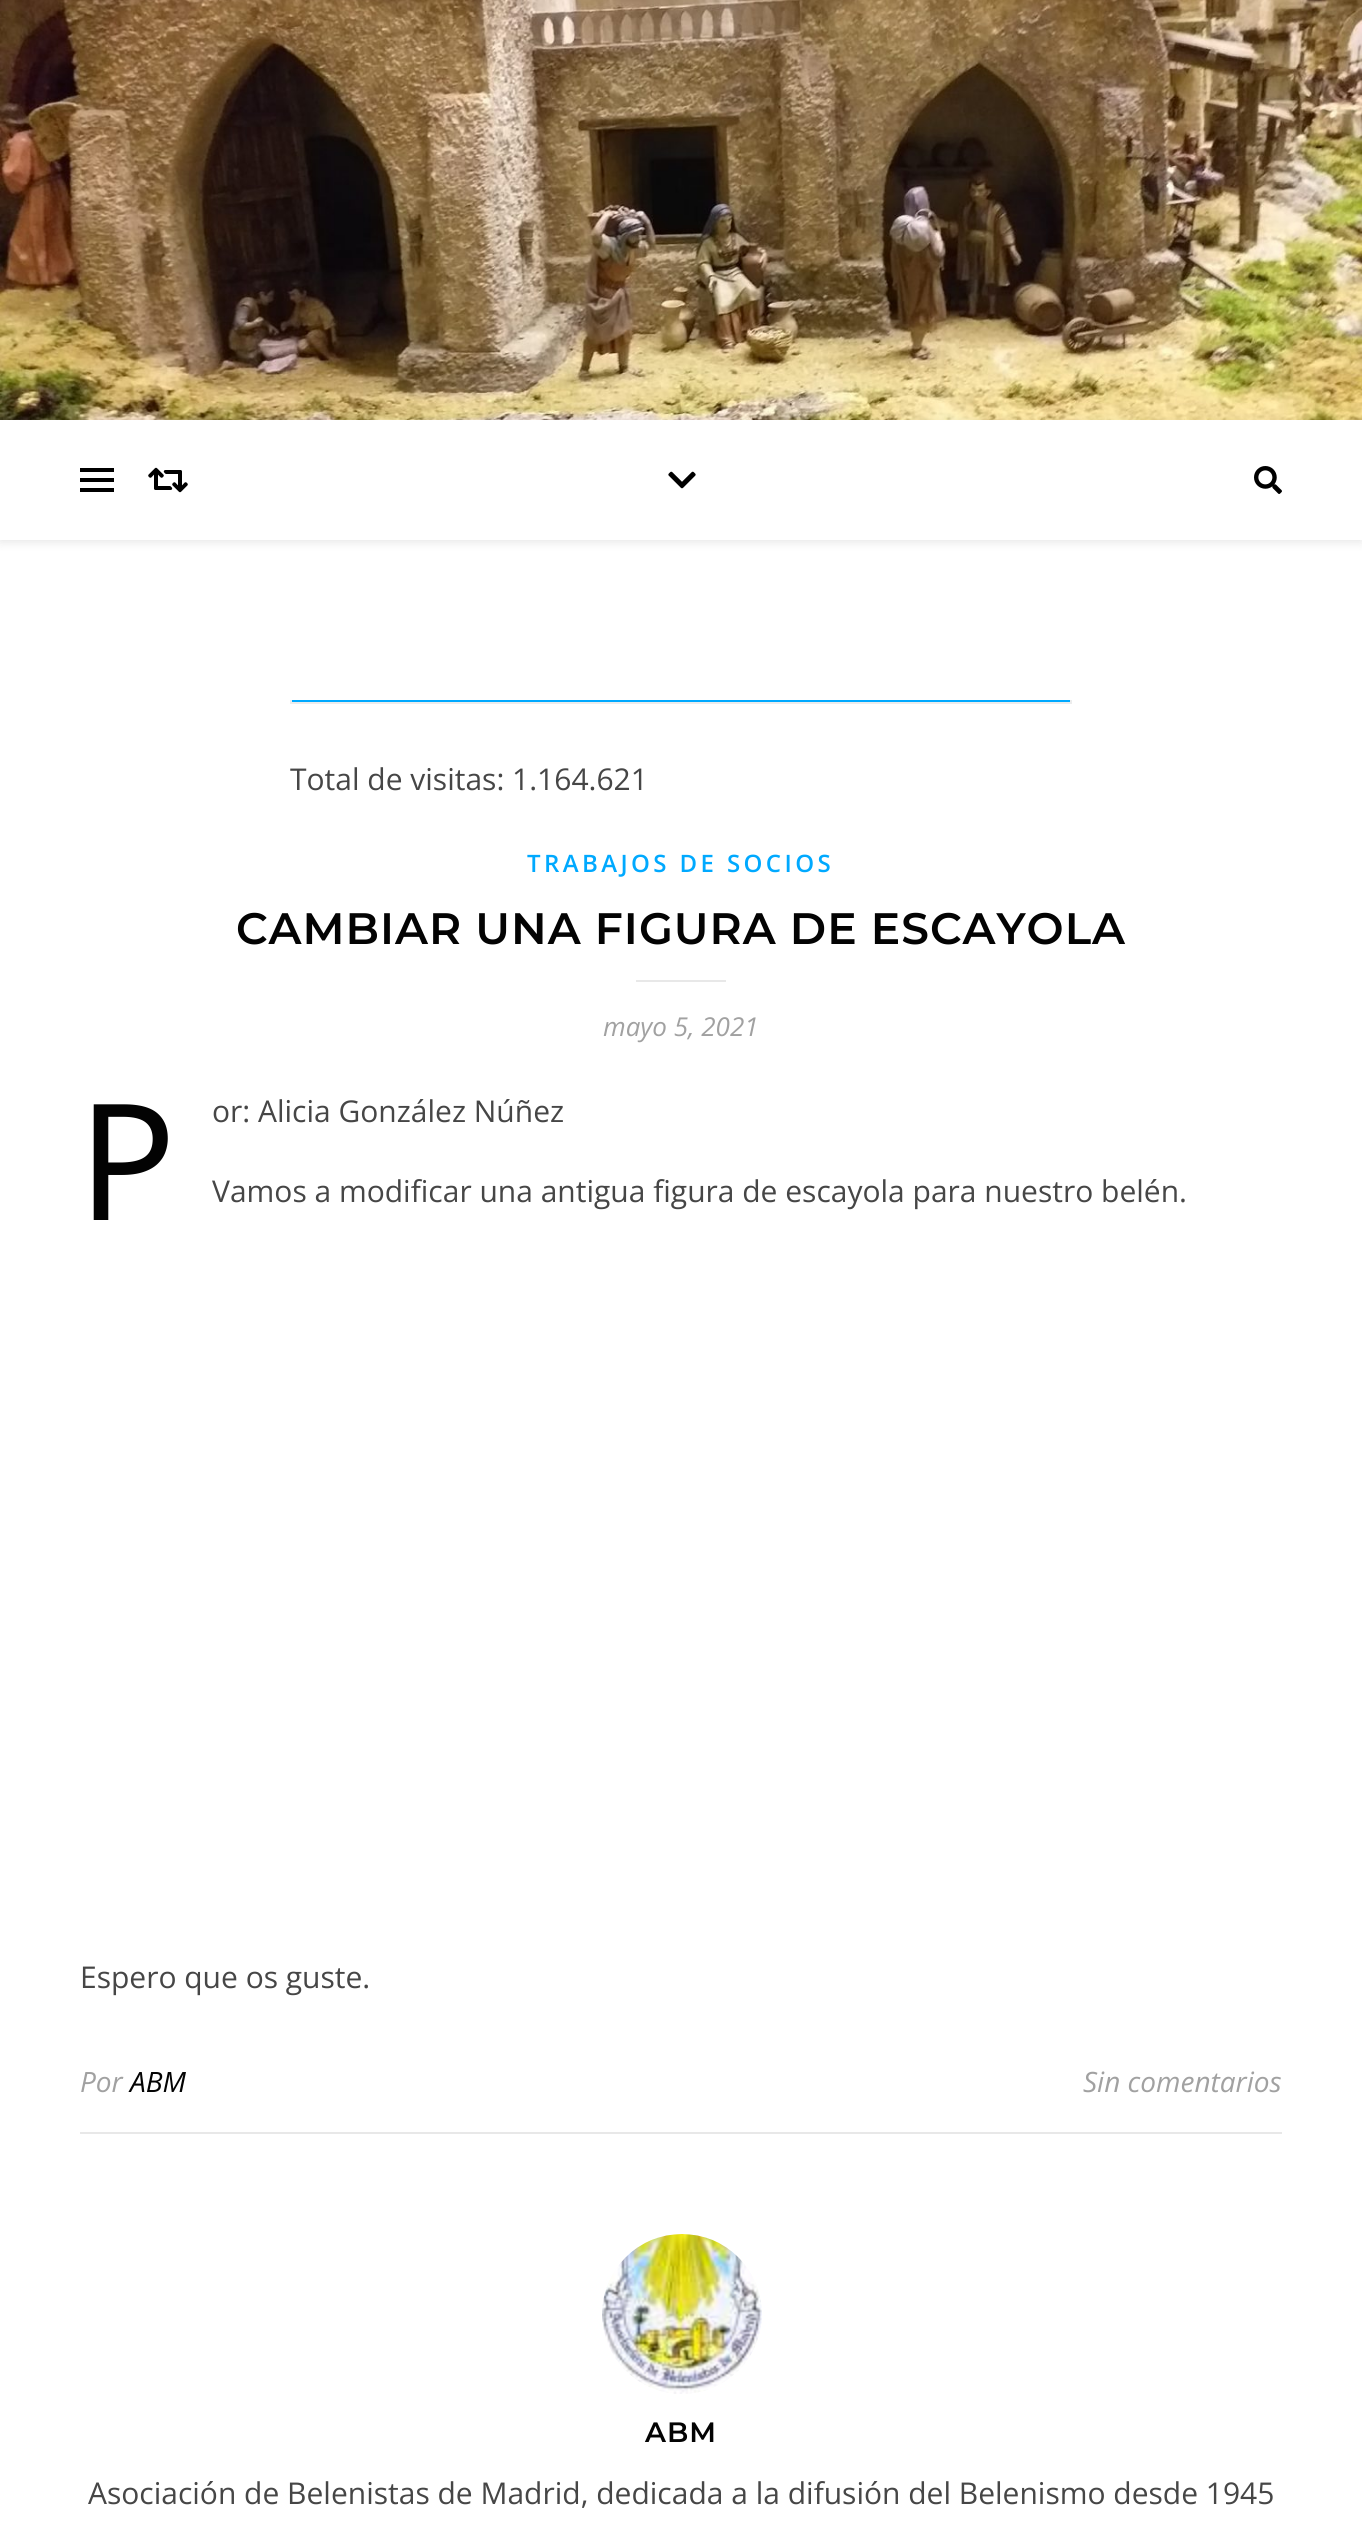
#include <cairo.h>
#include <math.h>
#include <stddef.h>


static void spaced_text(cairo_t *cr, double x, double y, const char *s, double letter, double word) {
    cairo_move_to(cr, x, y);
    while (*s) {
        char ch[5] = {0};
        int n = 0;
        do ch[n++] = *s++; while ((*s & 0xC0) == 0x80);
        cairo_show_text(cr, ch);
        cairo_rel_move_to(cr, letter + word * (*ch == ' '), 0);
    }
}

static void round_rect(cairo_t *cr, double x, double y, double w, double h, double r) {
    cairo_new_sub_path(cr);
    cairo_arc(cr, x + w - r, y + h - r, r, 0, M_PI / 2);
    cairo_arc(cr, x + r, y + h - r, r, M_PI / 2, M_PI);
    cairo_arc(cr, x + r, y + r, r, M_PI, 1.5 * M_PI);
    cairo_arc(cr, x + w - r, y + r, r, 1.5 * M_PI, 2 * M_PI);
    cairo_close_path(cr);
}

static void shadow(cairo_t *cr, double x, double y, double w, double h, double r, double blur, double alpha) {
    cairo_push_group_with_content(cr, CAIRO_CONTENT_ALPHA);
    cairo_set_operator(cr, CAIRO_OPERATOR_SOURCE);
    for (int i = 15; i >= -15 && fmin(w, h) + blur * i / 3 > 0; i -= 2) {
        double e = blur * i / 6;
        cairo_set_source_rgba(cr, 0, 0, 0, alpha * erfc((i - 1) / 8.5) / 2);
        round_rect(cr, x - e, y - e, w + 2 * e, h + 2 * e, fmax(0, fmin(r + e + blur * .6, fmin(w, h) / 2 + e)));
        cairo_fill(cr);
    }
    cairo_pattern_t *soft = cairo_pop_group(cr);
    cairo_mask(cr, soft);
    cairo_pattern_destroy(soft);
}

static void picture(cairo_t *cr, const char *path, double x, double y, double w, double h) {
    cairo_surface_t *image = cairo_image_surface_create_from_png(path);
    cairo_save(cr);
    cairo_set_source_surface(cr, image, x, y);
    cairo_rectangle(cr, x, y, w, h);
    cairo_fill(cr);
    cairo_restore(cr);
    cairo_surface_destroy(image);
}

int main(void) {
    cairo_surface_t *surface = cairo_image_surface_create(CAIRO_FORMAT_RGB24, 1362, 2524);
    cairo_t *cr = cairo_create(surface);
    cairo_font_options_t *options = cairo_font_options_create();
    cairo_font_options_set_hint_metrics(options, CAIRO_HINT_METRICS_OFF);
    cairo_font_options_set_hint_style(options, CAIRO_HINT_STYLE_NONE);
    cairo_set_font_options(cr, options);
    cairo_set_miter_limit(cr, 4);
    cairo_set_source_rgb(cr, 1, 1, 1);
    cairo_paint(cr);
    picture(cr, "img1.png", 0, 0, 1362, 420);
    cairo_save(cr);
    cairo_set_fill_rule(cr, CAIRO_FILL_RULE_EVEN_ODD);
    cairo_new_path(cr);
    cairo_move_to(cr, 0, 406);
    cairo_line_to(cr, 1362, 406);
    cairo_line_to(cr, 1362, 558);
    cairo_line_to(cr, 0, 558);
    cairo_close_path(cr);
    cairo_move_to(cr, 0, 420);
    cairo_line_to(cr, 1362, 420);
    cairo_line_to(cr, 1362, 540);
    cairo_line_to(cr, 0, 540);
    cairo_close_path(cr);
    cairo_clip(cr);
    cairo_set_source_rgb(cr, 0, 0, 0);
    shadow(cr, 0, 422, 1362, 120, 0, 5, 0.1);
    cairo_restore(cr);
    cairo_set_source_rgb(cr, 0, 0, 0);
    cairo_rectangle(cr, 80, 468, 34, 4);
    cairo_fill(cr);
    cairo_rectangle(cr, 80, 478, 34, 4);
    cairo_fill(cr);
    cairo_rectangle(cr, 80, 488, 34, 4);
    cairo_fill(cr);
    picture(cr, "img2.png", 148, 467, 40, 26);
    picture(cr, "img3.png", 668, 471, 28, 18);
    picture(cr, "img4.png", 1254, 466, 28, 28);
    cairo_set_source_rgb(cr, 0, 0.663, 1);
    cairo_rectangle(cr, 290, 700, 782, 2);
    cairo_fill(cr);
    cairo_set_source_rgb(cr, 0.922, 0.922, 0.922);
    cairo_rectangle(cr, 1070, 700, 2, 4);
    cairo_fill(cr);
    cairo_rectangle(cr, 290, 702, 782, 2);
    cairo_fill(cr);
    cairo_rectangle(cr, 290, 700, 2, 4);
    cairo_fill(cr);
    cairo_select_font_face(cr, "Open Sans", CAIRO_FONT_SLANT_NORMAL, CAIRO_FONT_WEIGHT_NORMAL);
    cairo_set_font_size(cr, 30);
    cairo_set_source_rgb(cr, 0.275, 0.275, 0.275);
    cairo_move_to(cr, 290, 790);
    cairo_show_text(cr, "Total de visitas: 1.164.621");
    cairo_select_font_face(cr, "Open Sans SemiBold", CAIRO_FONT_SLANT_NORMAL, CAIRO_FONT_WEIGHT_NORMAL);
    cairo_set_font_size(cr, 24);
    cairo_set_source_rgb(cr, 0, 0.663, 1);
    spaced_text(cr, 527, 872, "TRABAJOS DE SOCIOS", 3.4, 0);
    cairo_select_font_face(cr, "Montserrat SemiBold", CAIRO_FONT_SLANT_NORMAL, CAIRO_FONT_WEIGHT_NORMAL);
    cairo_set_font_size(cr, 44);
    cairo_set_source_rgb(cr, 0.012, 0.012, 0.012);
    spaced_text(cr, 236, 944, "CAMBIAR UNA FIGURA DE ESCAYOLA", 1, 0);
    cairo_set_source_rgb(cr, 0.91, 0.91, 0.91);
    cairo_rectangle(cr, 636, 980, 90, 2);
    cairo_fill(cr);
    cairo_select_font_face(cr, "Open Sans", CAIRO_FONT_SLANT_ITALIC, CAIRO_FONT_WEIGHT_NORMAL);
    cairo_set_font_size(cr, 26);
    cairo_set_source_rgb(cr, 0.631, 0.631, 0.631);
    cairo_move_to(cr, 603, 1036);
    cairo_show_text(cr, "mayo 5, 2021");
    cairo_select_font_face(cr, "Noto Sans", CAIRO_FONT_SLANT_NORMAL, CAIRO_FONT_WEIGHT_NORMAL);
    cairo_set_font_size(cr, 162);
    cairo_set_source_rgb(cr, 0.012, 0.012, 0.012);
    cairo_move_to(cr, 78, 1220);
    cairo_show_text(cr, "P");
    cairo_select_font_face(cr, "Open Sans", CAIRO_FONT_SLANT_NORMAL, CAIRO_FONT_WEIGHT_NORMAL);
    cairo_set_font_size(cr, 30);
    cairo_set_source_rgb(cr, 0.275, 0.275, 0.275);
    cairo_move_to(cr, 212, 1122);
    cairo_show_text(cr, "or: Alicia González Núñez");
    cairo_move_to(cr, 212, 1202);
    cairo_show_text(cr, "Vamos a modificar una antigua figura de escayola para nuestro belén.");
    cairo_move_to(cr, 80, 1988);
    cairo_show_text(cr, "Espero que os guste.");
    cairo_set_source_rgb(cr, 0.91, 0.91, 0.91);
    cairo_rectangle(cr, 80, 2132, 1202, 2);
    cairo_fill(cr);
    cairo_select_font_face(cr, "Open Sans", CAIRO_FONT_SLANT_ITALIC, CAIRO_FONT_WEIGHT_NORMAL);
    cairo_set_font_size(cr, 28);
    cairo_set_source_rgb(cr, 0.631, 0.631, 0.631);
    cairo_move_to(cr, 80, 2092);
    cairo_show_text(cr, "Por");
    cairo_set_source_rgb(cr, 0.012, 0.012, 0.012);
    cairo_move_to(cr, 130, 2092);
    cairo_show_text(cr, "ABM");
    cairo_set_source_rgb(cr, 0.631, 0.631, 0.631);
    cairo_move_to(cr, 1083, 2092);
    cairo_show_text(cr, "Sin comentarios");
    picture(cr, "img5.png", 602, 2234, 160, 160);
    cairo_select_font_face(cr, "Montserrat SemiBold", CAIRO_FONT_SLANT_NORMAL, CAIRO_FONT_WEIGHT_NORMAL);
    cairo_set_source_rgb(cr, 0.012, 0.012, 0.012);
    spaced_text(cr, 645, 2442, "ABM", 1, 0);
    cairo_select_font_face(cr, "Open Sans", CAIRO_FONT_SLANT_NORMAL, CAIRO_FONT_WEIGHT_NORMAL);
    cairo_set_font_size(cr, 30);
    cairo_set_source_rgb(cr, 0.275, 0.275, 0.275);
    cairo_move_to(cr, 88, 2504);
    cairo_show_text(cr, "Asociación de Belenistas de Madrid, dedicada a la difusión del Belenismo desde 1945");
    cairo_surface_write_to_png(surface, "page.png");
    cairo_font_options_destroy(options);
    cairo_destroy(cr);
    cairo_surface_destroy(surface);
    return 0;
}
